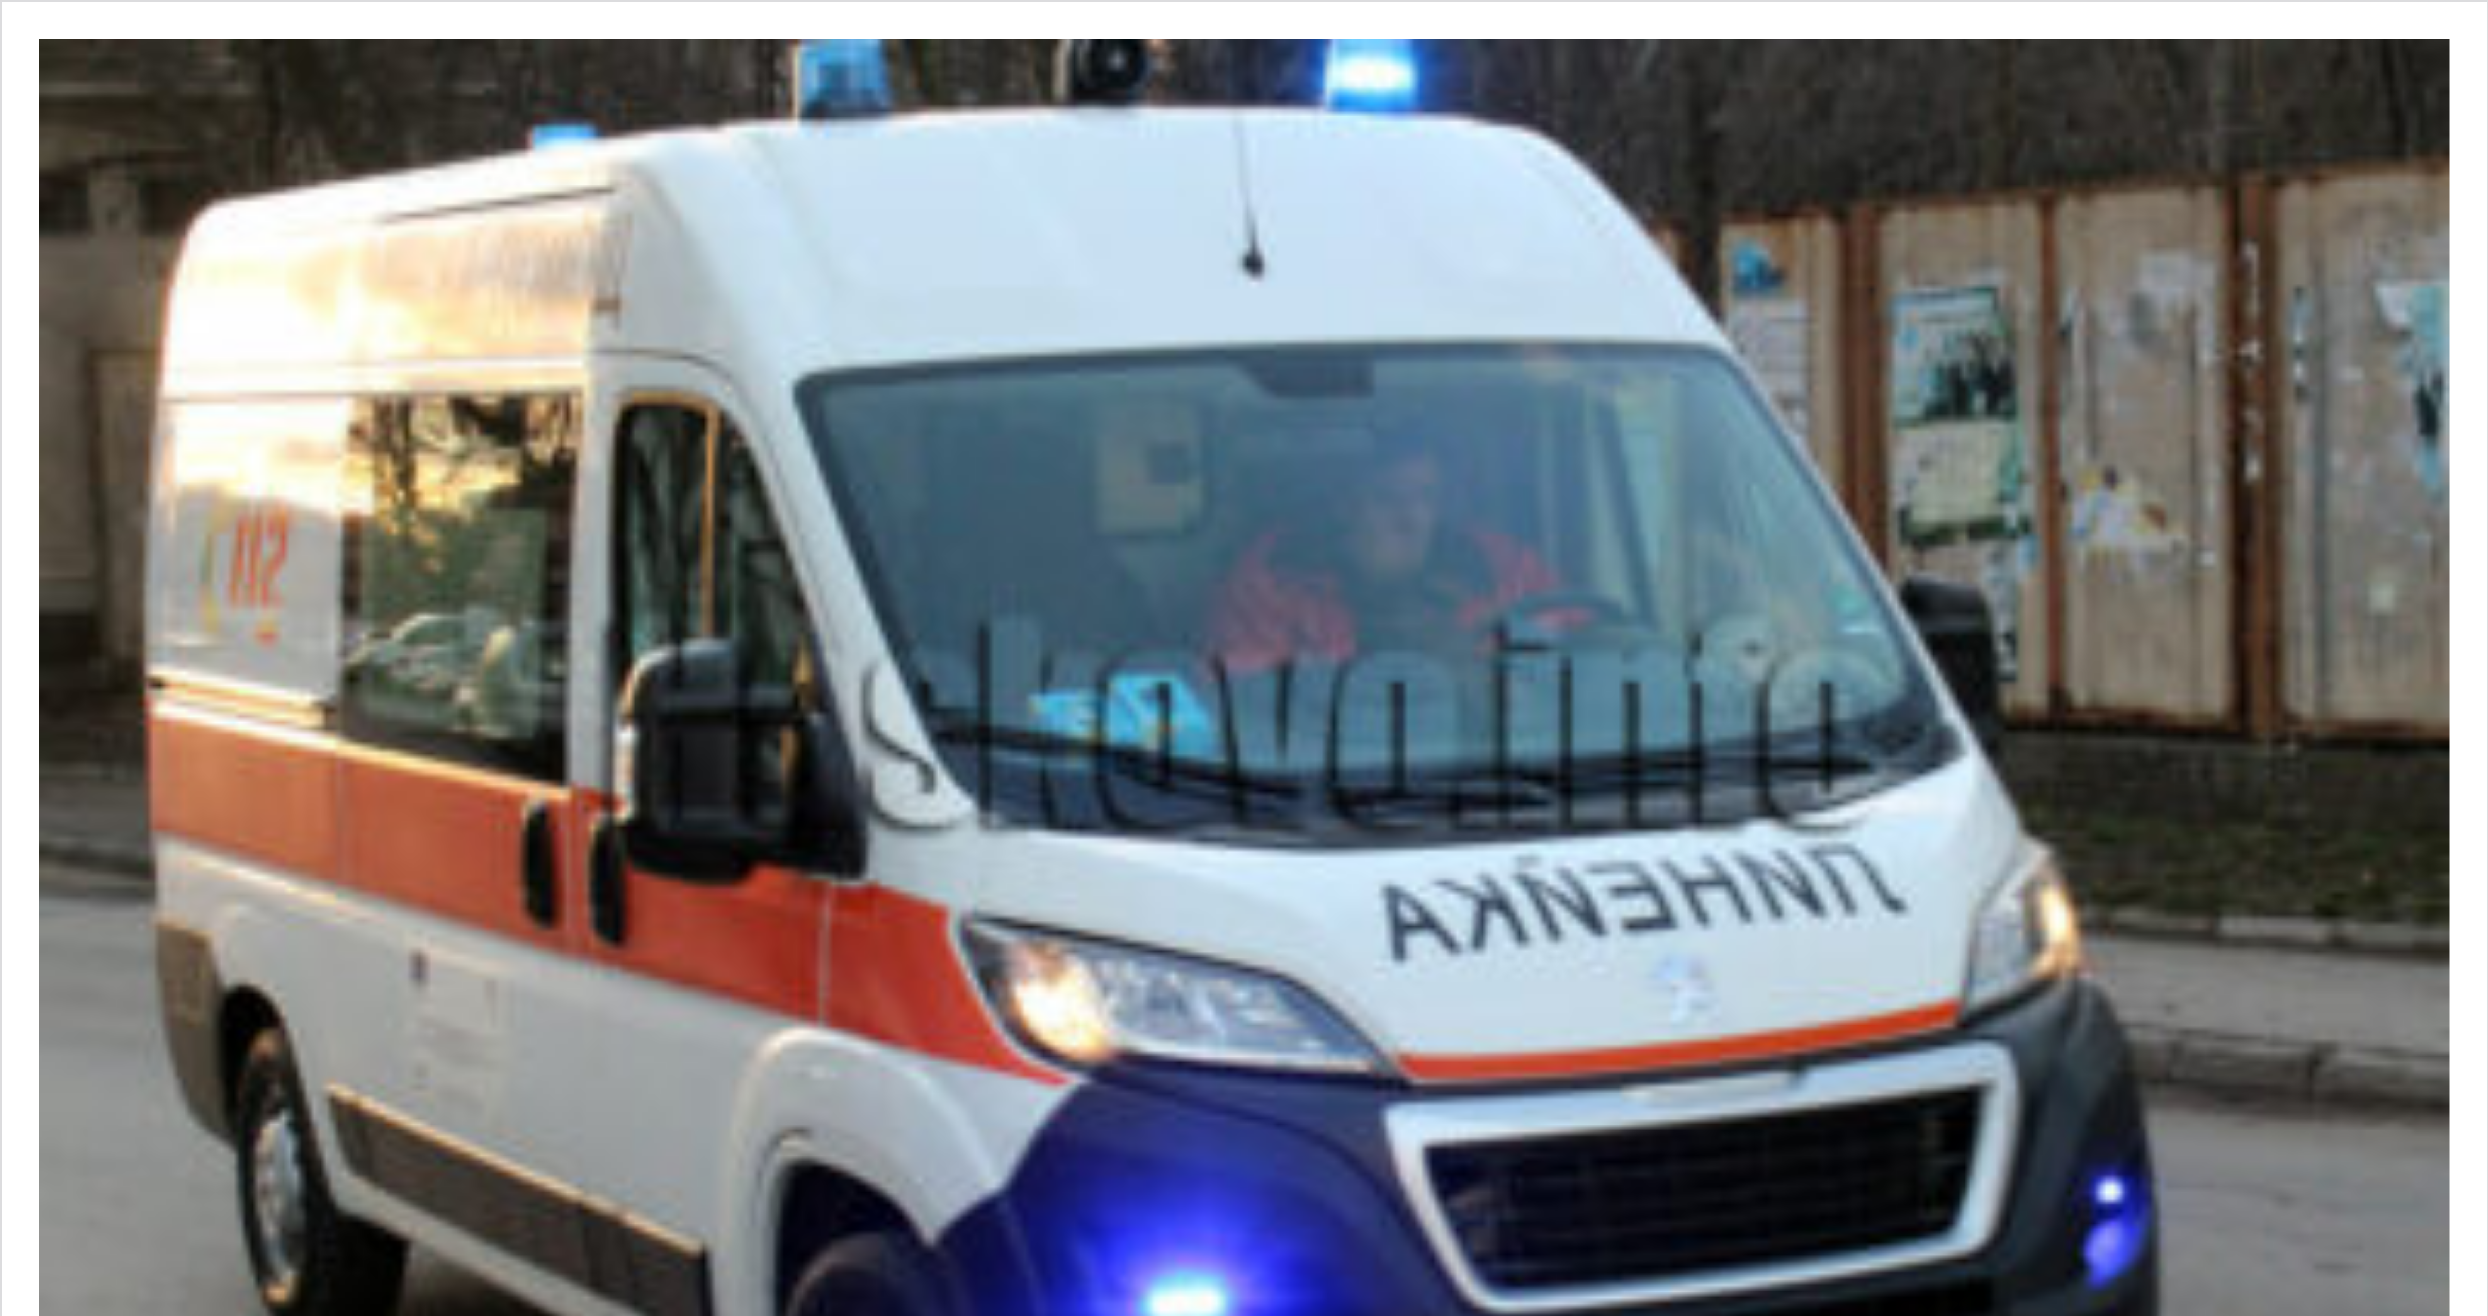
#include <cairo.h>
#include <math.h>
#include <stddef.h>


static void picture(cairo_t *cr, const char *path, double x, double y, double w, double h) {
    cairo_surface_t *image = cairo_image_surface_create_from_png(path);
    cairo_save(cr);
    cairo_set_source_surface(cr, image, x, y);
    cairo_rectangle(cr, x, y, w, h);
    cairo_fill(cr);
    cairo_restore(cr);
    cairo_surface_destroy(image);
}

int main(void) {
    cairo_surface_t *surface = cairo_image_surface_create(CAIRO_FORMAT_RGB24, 2488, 1316);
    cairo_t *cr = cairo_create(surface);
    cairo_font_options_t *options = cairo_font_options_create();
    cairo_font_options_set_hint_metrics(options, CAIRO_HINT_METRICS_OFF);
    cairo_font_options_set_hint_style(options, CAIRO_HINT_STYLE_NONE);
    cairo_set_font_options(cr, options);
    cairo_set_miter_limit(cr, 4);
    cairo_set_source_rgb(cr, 1, 1, 1);
    cairo_paint(cr);
    cairo_rectangle(cr, 1, 1, 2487, 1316);
    cairo_set_source_rgb(cr, 0.863, 0.863, 0.871);
    cairo_stroke(cr);
    picture(cr, "img1.png", 39, 39, 2411, 1277);
    cairo_surface_write_to_png(surface, "page.png");
    cairo_font_options_destroy(options);
    cairo_destroy(cr);
    cairo_surface_destroy(surface);
    return 0;
}
